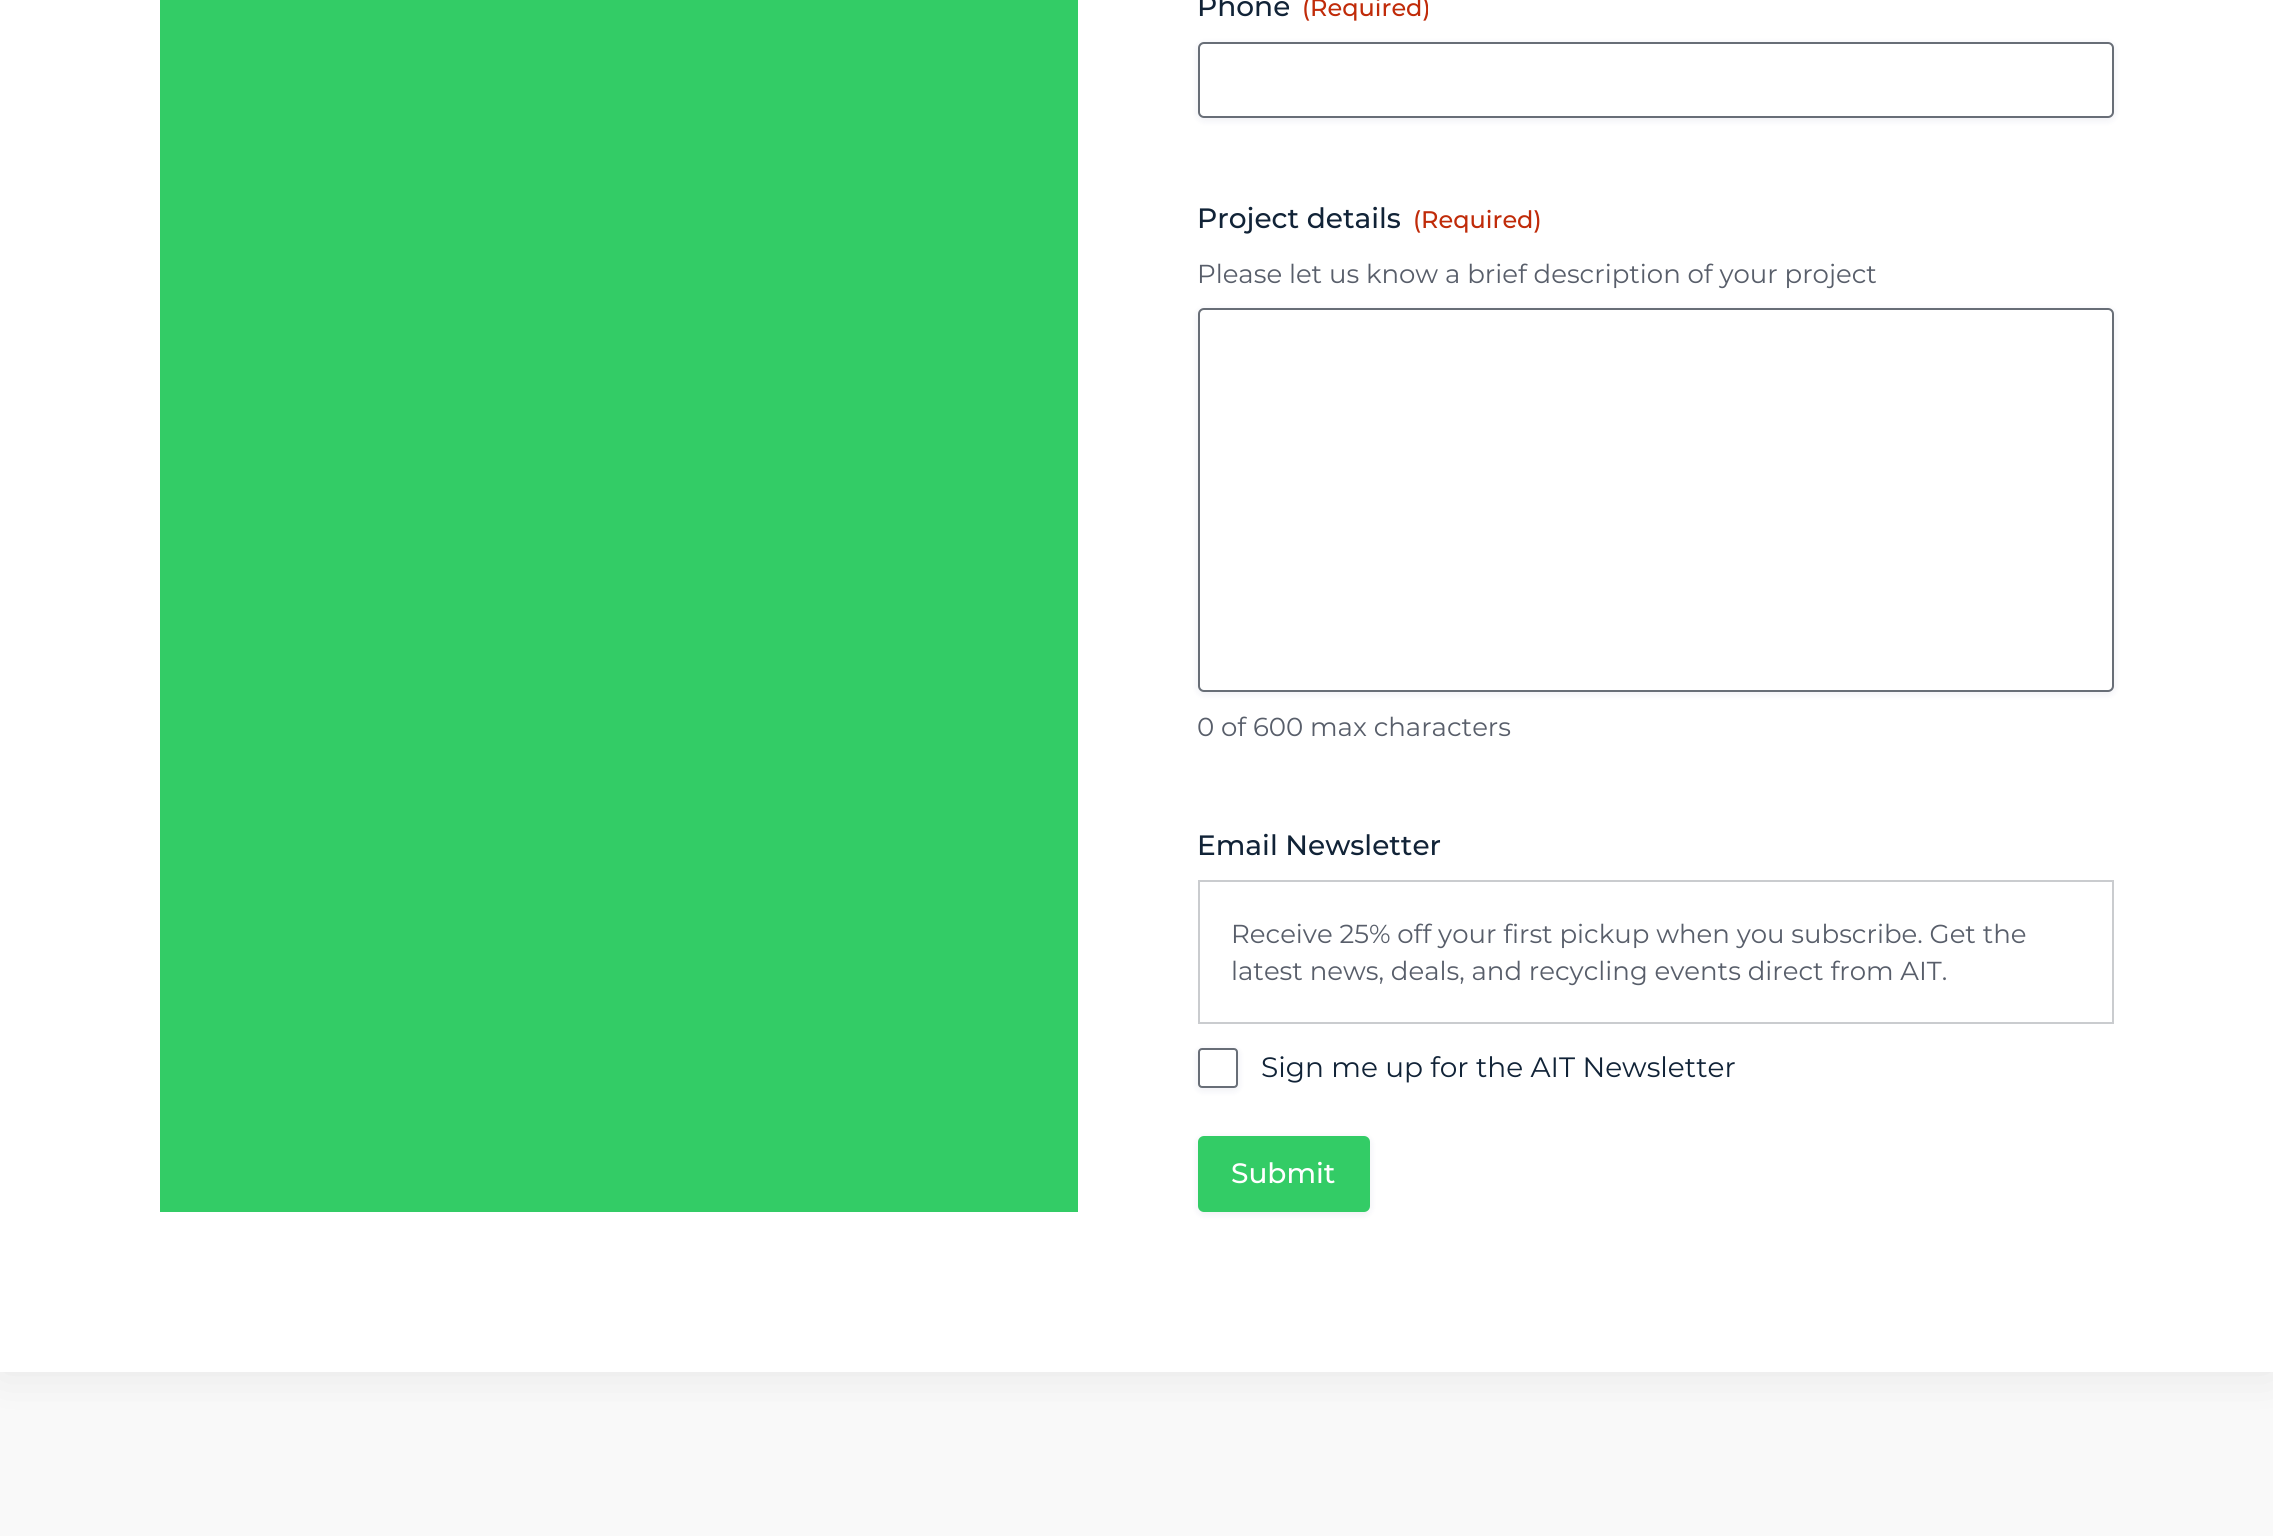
#include <cairo.h>
#include <math.h>
#include <stddef.h>


static void round_rect(cairo_t *cr, double x, double y, double w, double h, double r) {
    cairo_new_sub_path(cr);
    cairo_arc(cr, x + w - r, y + h - r, r, 0, M_PI / 2);
    cairo_arc(cr, x + r, y + h - r, r, M_PI / 2, M_PI);
    cairo_arc(cr, x + r, y + r, r, M_PI, 1.5 * M_PI);
    cairo_arc(cr, x + w - r, y + r, r, 1.5 * M_PI, 2 * M_PI);
    cairo_close_path(cr);
}

static void shadow(cairo_t *cr, double x, double y, double w, double h, double r, double blur, double alpha) {
    cairo_push_group_with_content(cr, CAIRO_CONTENT_ALPHA);
    cairo_set_operator(cr, CAIRO_OPERATOR_SOURCE);
    for (int i = 15; i >= -15 && fmin(w, h) + blur * i / 3 > 0; i -= 2) {
        double e = blur * i / 6;
        cairo_set_source_rgba(cr, 0, 0, 0, alpha * erfc((i - 1) / 8.5) / 2);
        round_rect(cr, x - e, y - e, w + 2 * e, h + 2 * e, fmax(0, fmin(r + e + blur * .6, fmin(w, h) / 2 + e)));
        cairo_fill(cr);
    }
    cairo_pattern_t *soft = cairo_pop_group(cr);
    cairo_mask(cr, soft);
    cairo_pattern_destroy(soft);
}

int main(void) {
    cairo_surface_t *surface = cairo_image_surface_create(CAIRO_FORMAT_RGB24, 2273, 1536);
    cairo_t *cr = cairo_create(surface);
    cairo_font_options_t *options = cairo_font_options_create();
    cairo_font_options_set_hint_metrics(options, CAIRO_HINT_METRICS_OFF);
    cairo_font_options_set_hint_style(options, CAIRO_HINT_STYLE_NONE);
    cairo_set_font_options(cr, options);
    cairo_set_miter_limit(cr, 4);
    cairo_set_source_rgb(cr, 0.973, 0.973, 0.973);
    cairo_paint(cr);
    cairo_set_source_rgb(cr, 0, 0, 0);
    shadow(cr, 0, -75, 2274, 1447, 0, 25, 0.08);
    cairo_set_source_rgb(cr, 1, 1, 1);
    cairo_rectangle(cr, 0, 0, 2273, 1372);
    cairo_fill(cr);
    cairo_set_source_rgb(cr, 0.2, 0.8, 0.4);
    cairo_rectangle(cr, 160, 0, 918, 1212);
    cairo_fill(cr);
    cairo_select_font_face(cr, "Montserrat Medium", CAIRO_FONT_SLANT_NORMAL, CAIRO_FONT_WEIGHT_NORMAL);
    cairo_set_font_size(cr, 28);
    cairo_set_source_rgb(cr, 0.067, 0.137, 0.216);
    cairo_move_to(cr, 1197, 16);
    cairo_show_text(cr, "Phone");
    cairo_set_font_size(cr, 24);
    cairo_set_source_rgb(cr, 0.753, 0.169, 0.039);
    cairo_move_to(cr, 1302, 16);
    cairo_show_text(cr, "(Required)");
    cairo_set_source_rgb(cr, 0.071, 0.098, 0.38);
    shadow(cr, 1198, 44, 916, 76, 6, 4, 0.08);
    cairo_set_source_rgb(cr, 1, 1, 1);
    round_rect(cr, 1199, 43, 914, 74, 5);
    cairo_fill_preserve(cr);
    cairo_set_source_rgb(cr, 0.408, 0.431, 0.467);
    cairo_stroke(cr);
    cairo_set_font_size(cr, 28);
    cairo_set_source_rgb(cr, 0.067, 0.137, 0.216);
    cairo_move_to(cr, 1197, 228);
    cairo_show_text(cr, "Project details");
    cairo_set_font_size(cr, 24);
    cairo_set_source_rgb(cr, 0.753, 0.169, 0.039);
    cairo_move_to(cr, 1413, 228);
    cairo_show_text(cr, "(Required)");
    cairo_select_font_face(cr, "Montserrat", CAIRO_FONT_SLANT_NORMAL, CAIRO_FONT_WEIGHT_NORMAL);
    cairo_set_font_size(cr, 26);
    cairo_set_source_rgb(cr, 0.345, 0.369, 0.416);
    cairo_move_to(cr, 1197, 283);
    cairo_show_text(cr, "Please let us know a brief description of your project");
    cairo_set_source_rgb(cr, 0.071, 0.098, 0.38);
    shadow(cr, 1198, 310, 916, 384, 6, 4, 0.08);
    cairo_set_source_rgb(cr, 1, 1, 1);
    round_rect(cr, 1199, 309, 914, 382, 5);
    cairo_fill_preserve(cr);
    cairo_set_source_rgb(cr, 0.408, 0.431, 0.467);
    cairo_stroke(cr);
    cairo_set_source_rgb(cr, 0.345, 0.369, 0.416);
    cairo_move_to(cr, 1197, 736);
    cairo_show_text(cr, "0 of 600 max characters");
    cairo_select_font_face(cr, "Montserrat Medium", CAIRO_FONT_SLANT_NORMAL, CAIRO_FONT_WEIGHT_NORMAL);
    cairo_set_font_size(cr, 28);
    cairo_set_source_rgb(cr, 0.067, 0.137, 0.216);
    cairo_move_to(cr, 1197, 855);
    cairo_show_text(cr, "Email Newsletter");
    cairo_rectangle(cr, 1199, 881, 914, 142);
    cairo_set_source_rgb(cr, 0.792, 0.8, 0.812);
    cairo_stroke(cr);
    cairo_select_font_face(cr, "Montserrat", CAIRO_FONT_SLANT_NORMAL, CAIRO_FONT_WEIGHT_NORMAL);
    cairo_set_font_size(cr, 26);
    cairo_set_source_rgb(cr, 0.345, 0.369, 0.416);
    cairo_move_to(cr, 1231, 943);
    cairo_show_text(cr, "Receive 25% off your first pickup when you subscribe. Get the");
    cairo_move_to(cr, 1231, 980);
    cairo_show_text(cr, "latest news, deals, and recycling events direct from AIT.");
    cairo_set_source_rgb(cr, 0.071, 0.098, 0.38);
    shadow(cr, 1198, 1050, 40, 40, 4, 4, 0.08);
    cairo_set_source_rgb(cr, 1, 1, 1);
    round_rect(cr, 1199, 1049, 38, 38, 3);
    cairo_fill_preserve(cr);
    cairo_set_source_rgb(cr, 0.408, 0.431, 0.467);
    cairo_stroke(cr);
    cairo_set_font_size(cr, 28);
    cairo_set_source_rgb(cr, 0.067, 0.137, 0.216);
    cairo_move_to(cr, 1261, 1077);
    cairo_show_text(cr, "Sign me up for the AIT Newsletter");
    cairo_set_source_rgb(cr, 0.071, 0.098, 0.38);
    shadow(cr, 1198, 1138, 172, 76, 6, 4, 0.08);
    cairo_set_source_rgb(cr, 0.2, 0.8, 0.4);
    round_rect(cr, 1198, 1136, 172, 76, 6);
    cairo_fill(cr);
    cairo_select_font_face(cr, "Montserrat Medium", CAIRO_FONT_SLANT_NORMAL, CAIRO_FONT_WEIGHT_NORMAL);
    cairo_set_source_rgb(cr, 1, 1, 1);
    cairo_move_to(cr, 1231, 1183);
    cairo_show_text(cr, "Submit");
    cairo_surface_write_to_png(surface, "page.png");
    cairo_font_options_destroy(options);
    cairo_destroy(cr);
    cairo_surface_destroy(surface);
    return 0;
}
